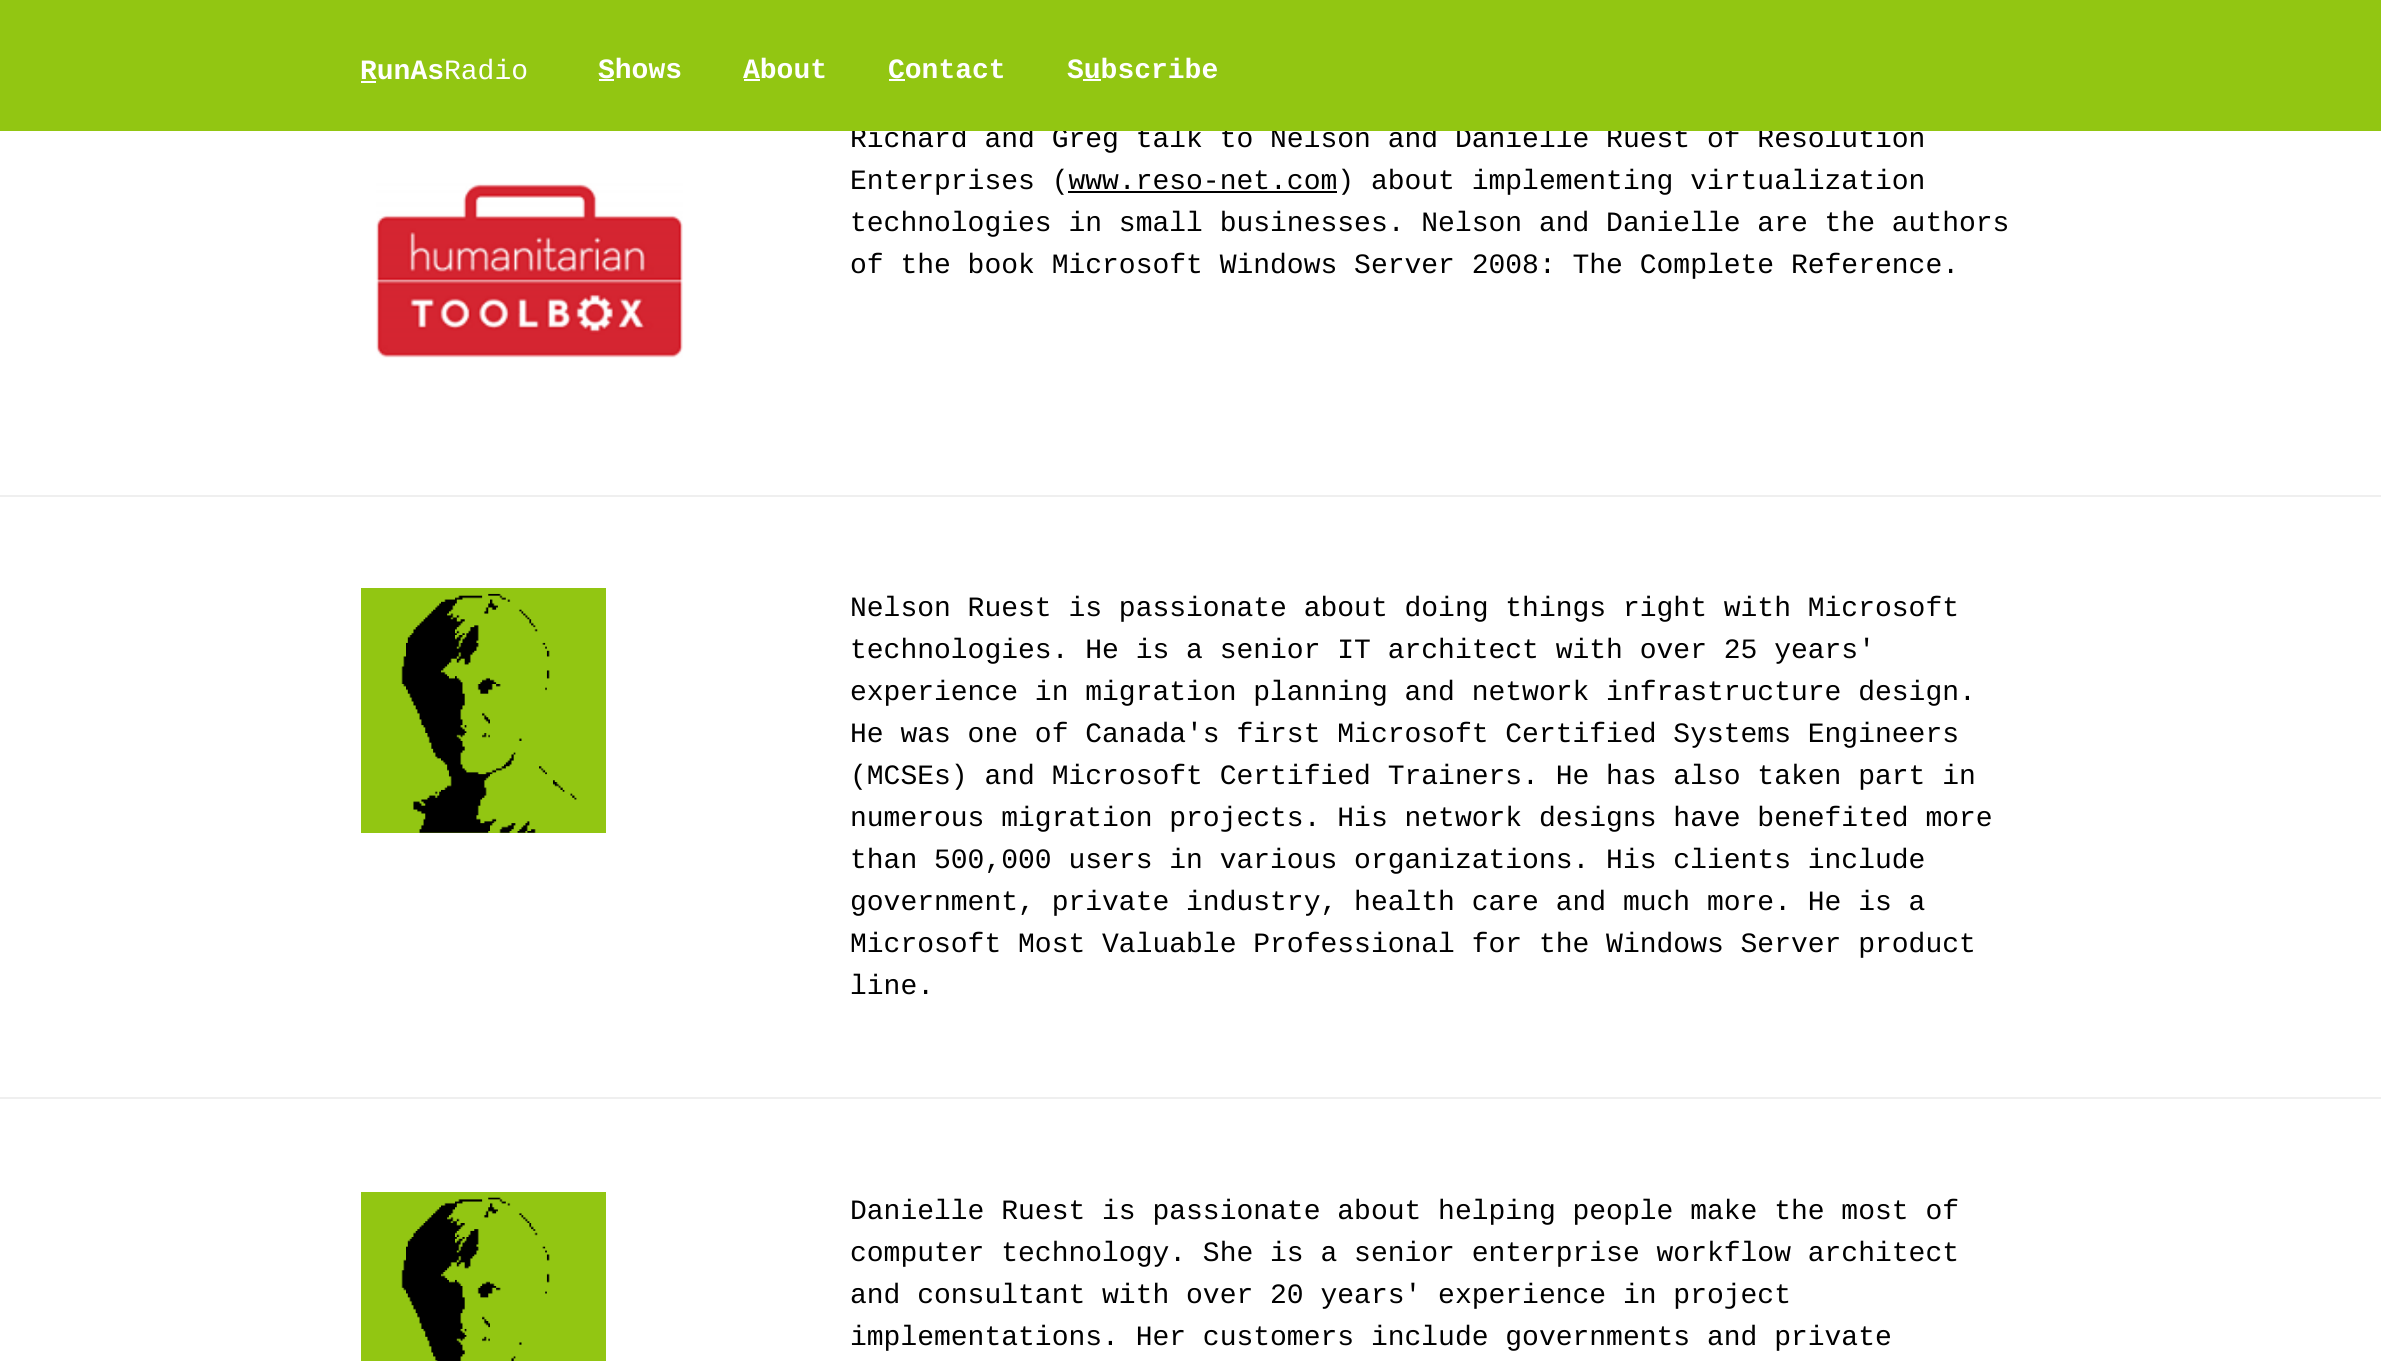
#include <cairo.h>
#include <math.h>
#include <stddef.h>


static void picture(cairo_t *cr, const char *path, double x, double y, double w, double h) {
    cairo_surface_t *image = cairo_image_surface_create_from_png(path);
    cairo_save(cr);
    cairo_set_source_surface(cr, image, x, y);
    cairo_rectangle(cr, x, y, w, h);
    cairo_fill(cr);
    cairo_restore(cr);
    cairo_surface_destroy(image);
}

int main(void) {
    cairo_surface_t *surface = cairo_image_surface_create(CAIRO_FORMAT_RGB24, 2381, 1361);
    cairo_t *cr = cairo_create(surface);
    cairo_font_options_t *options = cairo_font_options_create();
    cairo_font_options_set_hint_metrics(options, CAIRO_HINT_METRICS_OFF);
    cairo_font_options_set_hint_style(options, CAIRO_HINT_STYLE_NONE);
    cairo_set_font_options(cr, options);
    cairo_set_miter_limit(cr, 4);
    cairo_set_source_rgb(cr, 1, 1, 1);
    cairo_paint(cr);
    cairo_select_font_face(cr, "Liberation Mono", CAIRO_FONT_SLANT_NORMAL, CAIRO_FONT_WEIGHT_NORMAL);
    cairo_set_font_size(cr, 28);
    cairo_set_source_rgb(cr, 0, 0, 0);
    cairo_move_to(cr, 850, 147);
    cairo_show_text(cr, "Richard and Greg talk to Nelson and Danielle Ruest of Resolution");
    cairo_set_source_rgb(cr, 0.573, 0.776, 0.071);
    cairo_rectangle(cr, 0, 0, 2381, 131);
    cairo_fill(cr);
    cairo_select_font_face(cr, "Liberation Mono", CAIRO_FONT_SLANT_NORMAL, CAIRO_FONT_WEIGHT_BOLD);
    cairo_set_source_rgb(cr, 1, 1, 1);
    cairo_move_to(cr, 360, 79);
    cairo_show_text(cr, "RunAs");
    cairo_rectangle(cr, 361, 81, 15, 2);
    cairo_fill(cr);
    cairo_select_font_face(cr, "Liberation Mono", CAIRO_FONT_SLANT_NORMAL, CAIRO_FONT_WEIGHT_NORMAL);
    cairo_move_to(cr, 444, 79);
    cairo_show_text(cr, "Radio");
    cairo_select_font_face(cr, "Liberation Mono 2", CAIRO_FONT_SLANT_NORMAL, CAIRO_FONT_WEIGHT_BOLD);
    cairo_move_to(cr, 598, 78);
    cairo_show_text(cr, "Shows");
    cairo_rectangle(cr, 599, 79, 15, 2);
    cairo_fill(cr);
    cairo_move_to(cr, 743, 78);
    cairo_show_text(cr, "About");
    cairo_rectangle(cr, 744, 79, 16, 2);
    cairo_fill(cr);
    cairo_move_to(cr, 888, 78);
    cairo_show_text(cr, "Contact");
    cairo_rectangle(cr, 889, 79, 16, 2);
    cairo_fill(cr);
    cairo_move_to(cr, 1067, 78);
    cairo_show_text(cr, "Subscribe");
    cairo_rectangle(cr, 1083, 79, 18, 2);
    cairo_fill(cr);
    picture(cr, "img1.png", 376, 183, 307, 175);
    cairo_select_font_face(cr, "Liberation Mono", CAIRO_FONT_SLANT_NORMAL, CAIRO_FONT_WEIGHT_NORMAL);
    cairo_set_source_rgb(cr, 0, 0, 0);
    cairo_move_to(cr, 850, 189);
    cairo_show_text(cr, "Enterprises (www.reso-net.com) about implementing virtualization");
    cairo_rectangle(cr, 1068, 191, 269, 2);
    cairo_fill(cr);
    cairo_move_to(cr, 850, 231);
    cairo_show_text(cr, "technologies in small businesses. Nelson and Danielle are the authors");
    cairo_move_to(cr, 850, 273);
    cairo_show_text(cr, "of the book Microsoft Windows Server 2008: The Complete Reference.");
    cairo_set_source_rgb(cr, 0.937, 0.937, 0.937);
    cairo_rectangle(cr, 0, 495, 2381, 2);
    cairo_fill(cr);
    cairo_set_source_rgb(cr, 0.573, 0.776, 0.071);
    cairo_rectangle(cr, 361, 588, 245, 245);
    cairo_fill(cr);
    picture(cr, "img2.png", 401, 593, 176, 240);
    cairo_set_source_rgb(cr, 0, 0, 0);
    cairo_move_to(cr, 850, 616);
    cairo_show_text(cr, "Nelson Ruest is passionate about doing things right with Microsoft");
    cairo_move_to(cr, 850, 658);
    cairo_show_text(cr, "technologies. He is a senior IT architect with over 25 years'");
    cairo_move_to(cr, 850, 700);
    cairo_show_text(cr, "experience in migration planning and network infrastructure design.");
    cairo_move_to(cr, 850, 742);
    cairo_show_text(cr, "He was one of Canada's first Microsoft Certified Systems Engineers");
    cairo_move_to(cr, 850, 784);
    cairo_show_text(cr, "(MCSEs) and Microsoft Certified Trainers. He has also taken part in");
    cairo_move_to(cr, 850, 826);
    cairo_show_text(cr, "numerous migration projects. His network designs have benefited more");
    cairo_move_to(cr, 850, 868);
    cairo_show_text(cr, "than 500,000 users in various organizations. His clients include");
    cairo_move_to(cr, 850, 910);
    cairo_show_text(cr, "government, private industry, health care and much more. He is a");
    cairo_move_to(cr, 850, 952);
    cairo_show_text(cr, "Microsoft Most Valuable Professional for the Windows Server product");
    cairo_move_to(cr, 850, 994);
    cairo_show_text(cr, "line.");
    cairo_set_source_rgb(cr, 0.937, 0.937, 0.937);
    cairo_rectangle(cr, 0, 1097, 2381, 2);
    cairo_fill(cr);
    cairo_set_source_rgb(cr, 0.573, 0.776, 0.071);
    cairo_rectangle(cr, 361, 1192, 245, 169);
    cairo_fill(cr);
    picture(cr, "img3.png", 401, 1197, 149, 164);
    cairo_set_source_rgb(cr, 0, 0, 0);
    cairo_move_to(cr, 850, 1219);
    cairo_show_text(cr, "Danielle Ruest is passionate about helping people make the most of");
    cairo_move_to(cr, 850, 1261);
    cairo_show_text(cr, "computer technology. She is a senior enterprise workflow architect");
    cairo_move_to(cr, 850, 1303);
    cairo_show_text(cr, "and consultant with over 20 years' experience in project");
    cairo_move_to(cr, 850, 1345);
    cairo_show_text(cr, "implementations. Her customers include governments and private");
    cairo_surface_write_to_png(surface, "page.png");
    cairo_font_options_destroy(options);
    cairo_destroy(cr);
    cairo_surface_destroy(surface);
    return 0;
}
